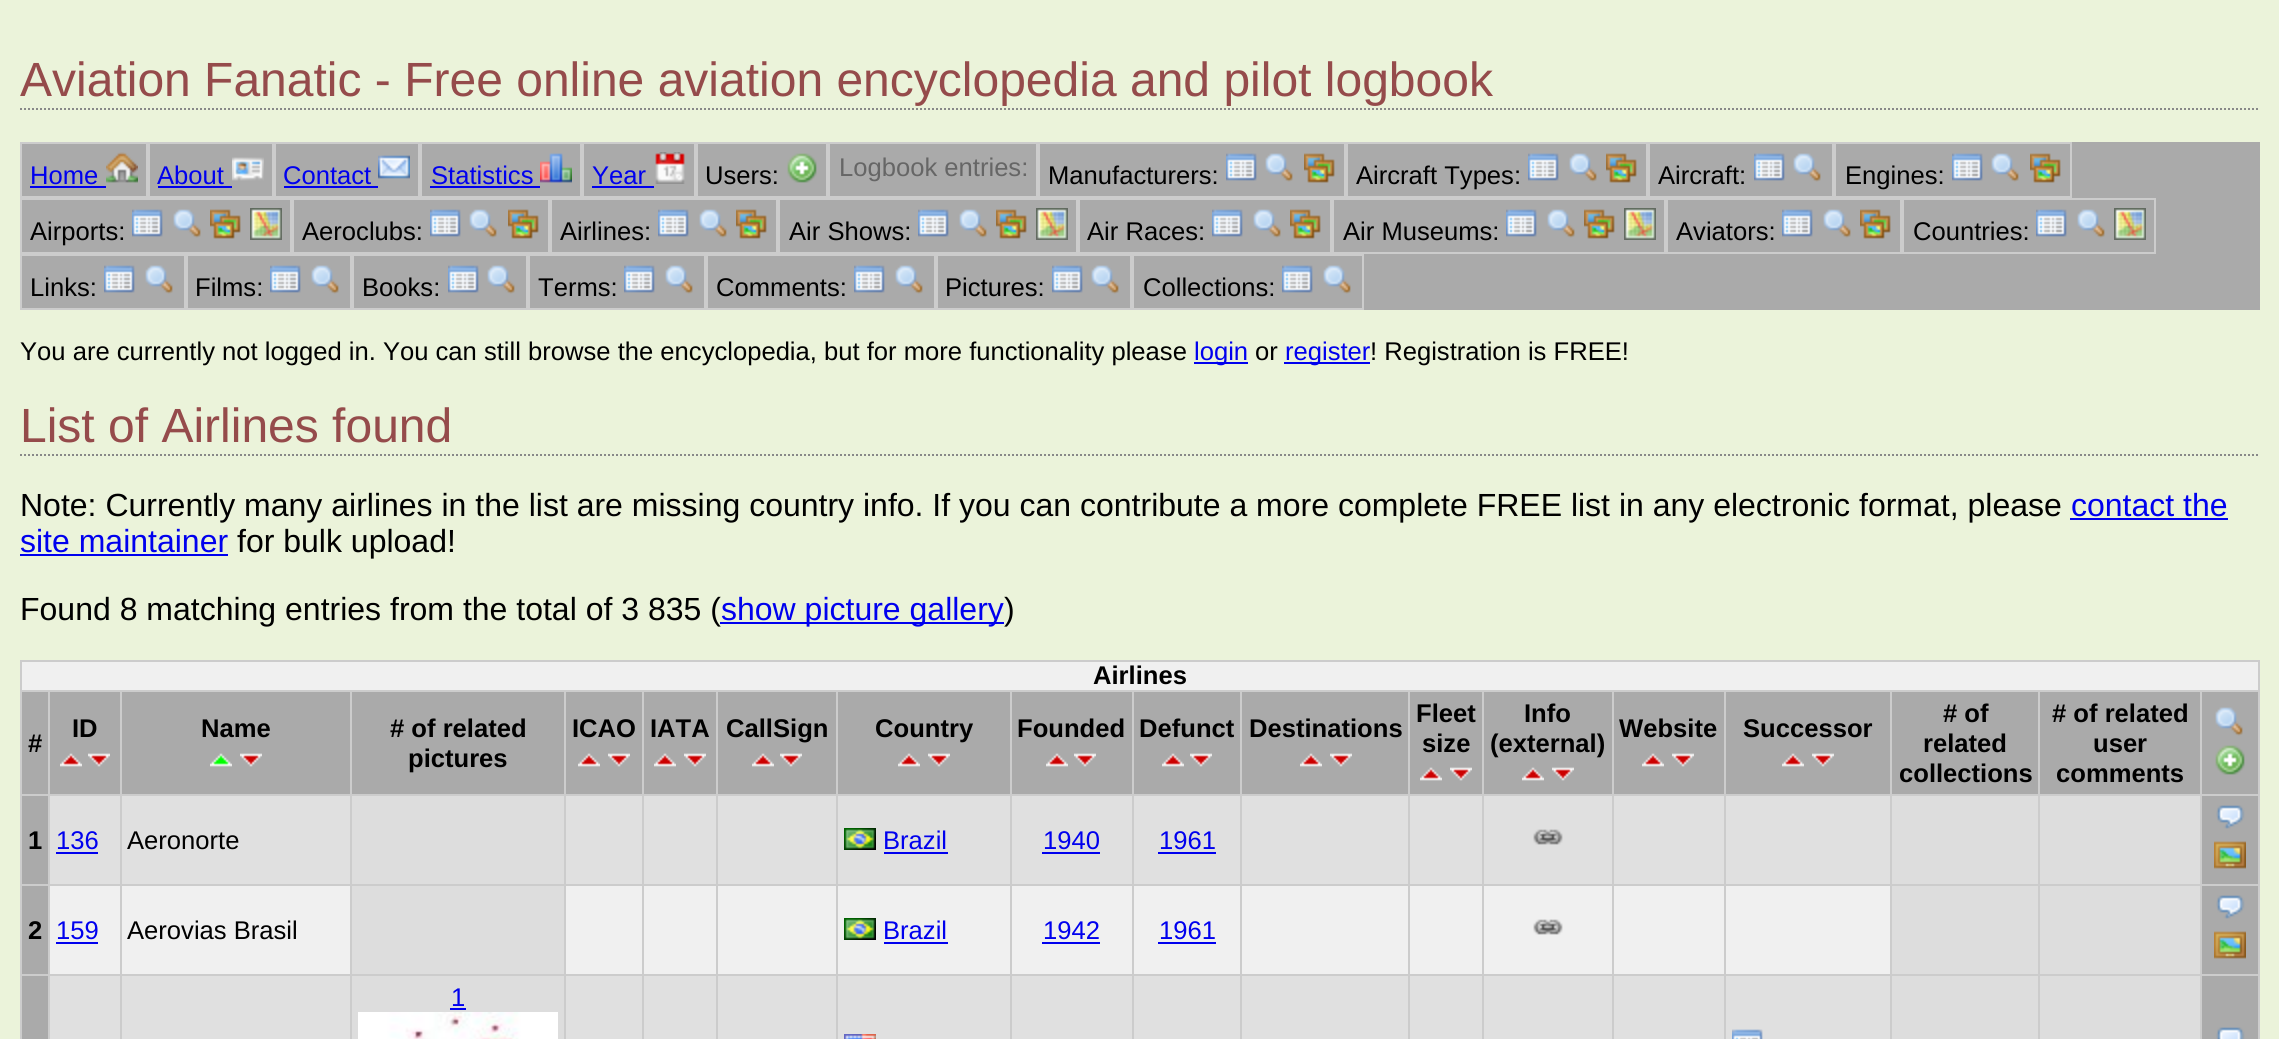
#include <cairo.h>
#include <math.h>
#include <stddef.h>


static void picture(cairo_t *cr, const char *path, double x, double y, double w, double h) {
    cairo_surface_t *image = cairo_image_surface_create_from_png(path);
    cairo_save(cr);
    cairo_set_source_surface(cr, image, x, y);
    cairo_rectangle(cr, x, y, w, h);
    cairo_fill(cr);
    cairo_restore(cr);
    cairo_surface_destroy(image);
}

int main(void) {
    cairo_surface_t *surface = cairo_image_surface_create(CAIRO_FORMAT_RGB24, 2279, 1039);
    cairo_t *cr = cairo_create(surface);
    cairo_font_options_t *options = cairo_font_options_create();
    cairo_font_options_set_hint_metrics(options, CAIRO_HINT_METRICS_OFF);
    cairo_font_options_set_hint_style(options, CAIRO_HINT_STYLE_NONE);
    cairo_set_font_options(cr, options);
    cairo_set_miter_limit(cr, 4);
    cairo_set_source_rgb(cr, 0.918, 0.953, 0.855);
    cairo_paint(cr);
    cairo_new_path(cr);
    cairo_move_to(cr, 20, 109);
    cairo_line_to(cr, 2260, 109);
    cairo_set_source_rgb(cr, 0.533, 0.533, 0.533);
    cairo_set_dash(cr, (double[]){2, 2}, 2, 0);
    cairo_stroke(cr);
    cairo_select_font_face(cr, "Liberation Sans", CAIRO_FONT_SLANT_NORMAL, CAIRO_FONT_WEIGHT_NORMAL);
    cairo_set_font_size(cr, 48);
    cairo_set_source_rgb(cr, 0.584, 0.294, 0.294);
    cairo_move_to(cr, 20, 96);
    cairo_show_text(cr, "Aviation Fanatic - Free online aviation encyclopedia and pilot logbook");
    cairo_set_source_rgb(cr, 0.667, 0.667, 0.667);
    cairo_rectangle(cr, 22, 142, 2238, 168);
    cairo_fill(cr);
    cairo_rectangle(cr, 21, 143, 126, 54);
    cairo_set_source_rgb(cr, 0.8, 0.8, 0.8);
    cairo_set_dash(cr, NULL, 0, 0);
    cairo_stroke(cr);
    cairo_set_font_size(cr, 25.6);
    cairo_set_source_rgb(cr, 0, 0, 0.933);
    cairo_move_to(cr, 30, 184);
    cairo_show_text(cr, "Home");
    cairo_rectangle(cr, 30, 186, 76, 2);
    cairo_fill(cr);
    picture(cr, "img1.png", 106, 152, 32, 31);
    cairo_rectangle(cr, 149, 143, 124, 54);
    cairo_set_source_rgb(cr, 0.8, 0.8, 0.8);
    cairo_stroke(cr);
    cairo_set_source_rgb(cr, 0, 0, 0.933);
    cairo_move_to(cr, 157, 184);
    cairo_show_text(cr, "About");
    cairo_rectangle(cr, 158, 186, 74, 2);
    cairo_fill(cr);
    picture(cr, "img2.png", 232, 157, 32, 24);
    cairo_rectangle(cr, 275, 143, 144, 54);
    cairo_set_source_rgb(cr, 0.8, 0.8, 0.8);
    cairo_stroke(cr);
    cairo_set_source_rgb(cr, 0, 0, 0.933);
    cairo_move_to(cr, 283, 184);
    cairo_show_text(cr, "Contact");
    cairo_rectangle(cr, 284, 186, 94, 2);
    cairo_fill(cr);
    picture(cr, "img3.png", 378, 155, 32, 24);
    cairo_rectangle(cr, 421, 143, 160, 54);
    cairo_set_source_rgb(cr, 0.8, 0.8, 0.8);
    cairo_stroke(cr);
    cairo_set_source_rgb(cr, 0, 0, 0.933);
    cairo_move_to(cr, 431, 184);
    cairo_show_text(cr, "Statistics");
    cairo_rectangle(cr, 430, 186, 110, 2);
    cairo_fill(cr);
    picture(cr, "img4.png", 540, 153, 32, 30);
    cairo_rectangle(cr, 583, 143, 112, 54);
    cairo_set_source_rgb(cr, 0.8, 0.8, 0.8);
    cairo_stroke(cr);
    cairo_set_source_rgb(cr, 0, 0, 0.933);
    cairo_move_to(cr, 592, 184);
    cairo_show_text(cr, "Year");
    cairo_rectangle(cr, 592, 186, 62, 2);
    cairo_fill(cr);
    picture(cr, "img5.png", 655, 152, 30, 32);
    cairo_rectangle(cr, 697, 143, 130, 54);
    cairo_set_source_rgb(cr, 0.8, 0.8, 0.8);
    cairo_stroke(cr);
    cairo_set_source_rgb(cr, 0, 0, 0);
    cairo_move_to(cr, 705, 184);
    cairo_show_text(cr, "Users:");
    picture(cr, "img6.png", 787, 153, 30, 30);
    cairo_rectangle(cr, 829, 143, 208, 54);
    cairo_set_source_rgb(cr, 0.8, 0.8, 0.8);
    cairo_stroke(cr);
    cairo_set_source_rgb(cr, 0.4, 0.4, 0.4);
    cairo_move_to(cr, 839, 176);
    cairo_show_text(cr, "Logbook entries:");
    cairo_rectangle(cr, 1039, 143, 306, 54);
    cairo_set_source_rgb(cr, 0.8, 0.8, 0.8);
    cairo_stroke(cr);
    cairo_set_source_rgb(cr, 0, 0, 0);
    cairo_move_to(cr, 1048, 184);
    cairo_show_text(cr, "Manufacturers:");
    picture(cr, "img7.png", 1226, 153, 31, 28);
    picture(cr, "img8.png", 1265, 153, 28, 29);
    picture(cr, "img9.png", 1304, 153, 31, 30);
    cairo_rectangle(cr, 1347, 143, 300, 54);
    cairo_set_source_rgb(cr, 0.8, 0.8, 0.8);
    cairo_stroke(cr);
    cairo_set_source_rgb(cr, 0, 0, 0);
    cairo_move_to(cr, 1356, 184);
    cairo_show_text(cr, "Aircraft Types:");
    picture(cr, "img7.png", 1528, 153, 31, 28);
    picture(cr, "img8.png", 1569, 153, 28, 29);
    picture(cr, "img9.png", 1606, 153, 31, 30);
    cairo_rectangle(cr, 1649, 143, 184, 54);
    cairo_set_source_rgb(cr, 0.8, 0.8, 0.8);
    cairo_stroke(cr);
    cairo_set_source_rgb(cr, 0, 0, 0);
    cairo_move_to(cr, 1658, 184);
    cairo_show_text(cr, "Aircraft:");
    picture(cr, "img7.png", 1754, 153, 31, 28);
    picture(cr, "img8.png", 1793, 153, 28, 29);
    cairo_rectangle(cr, 1835, 143, 236, 54);
    cairo_set_source_rgb(cr, 0.8, 0.8, 0.8);
    cairo_stroke(cr);
    cairo_set_source_rgb(cr, 0, 0, 0);
    cairo_move_to(cr, 1845, 184);
    cairo_show_text(cr, "Engines:");
    picture(cr, "img7.png", 1952, 153, 31, 28);
    picture(cr, "img8.png", 1991, 153, 28, 29);
    picture(cr, "img9.png", 2030, 153, 31, 30);
    cairo_rectangle(cr, 21, 199, 270, 54);
    cairo_set_source_rgb(cr, 0.8, 0.8, 0.8);
    cairo_stroke(cr);
    cairo_set_source_rgb(cr, 0, 0, 0);
    cairo_move_to(cr, 30, 240);
    cairo_show_text(cr, "Airports:");
    picture(cr, "img7.png", 132, 209, 31, 28);
    picture(cr, "img8.png", 173, 209, 28, 29);
    picture(cr, "img9.png", 210, 209, 31, 30);
    picture(cr, "img10.png", 250, 208, 32, 32);
    cairo_rectangle(cr, 293, 199, 256, 54);
    cairo_set_source_rgb(cr, 0.8, 0.8, 0.8);
    cairo_stroke(cr);
    cairo_set_source_rgb(cr, 0, 0, 0);
    cairo_move_to(cr, 302, 240);
    cairo_show_text(cr, "Aeroclubs:");
    picture(cr, "img7.png", 430, 209, 31, 28);
    picture(cr, "img8.png", 469, 209, 28, 29);
    picture(cr, "img9.png", 508, 209, 31, 30);
    cairo_rectangle(cr, 551, 199, 226, 54);
    cairo_set_source_rgb(cr, 0.8, 0.8, 0.8);
    cairo_stroke(cr);
    cairo_set_source_rgb(cr, 0, 0, 0);
    cairo_move_to(cr, 560, 240);
    cairo_show_text(cr, "Airlines:");
    picture(cr, "img7.png", 658, 209, 31, 28);
    picture(cr, "img8.png", 699, 209, 28, 29);
    picture(cr, "img9.png", 736, 209, 31, 30);
    cairo_rectangle(cr, 779, 199, 298, 54);
    cairo_set_source_rgb(cr, 0.8, 0.8, 0.8);
    cairo_stroke(cr);
    cairo_set_source_rgb(cr, 0, 0, 0);
    cairo_move_to(cr, 789, 240);
    cairo_show_text(cr, "Air Shows:");
    picture(cr, "img7.png", 918, 209, 31, 28);
    picture(cr, "img8.png", 959, 209, 28, 29);
    picture(cr, "img9.png", 996, 209, 31, 30);
    picture(cr, "img10.png", 1036, 208, 32, 32);
    cairo_rectangle(cr, 1079, 199, 252, 54);
    cairo_set_source_rgb(cr, 0.8, 0.8, 0.8);
    cairo_stroke(cr);
    cairo_set_source_rgb(cr, 0, 0, 0);
    cairo_move_to(cr, 1087, 240);
    cairo_show_text(cr, "Air Races:");
    picture(cr, "img7.png", 1212, 209, 31, 28);
    picture(cr, "img8.png", 1253, 209, 28, 29);
    picture(cr, "img9.png", 1290, 209, 31, 30);
    cairo_rectangle(cr, 1333, 199, 332, 54);
    cairo_set_source_rgb(cr, 0.8, 0.8, 0.8);
    cairo_stroke(cr);
    cairo_set_source_rgb(cr, 0, 0, 0);
    cairo_move_to(cr, 1343, 240);
    cairo_show_text(cr, "Air Museums:");
    picture(cr, "img7.png", 1506, 209, 31, 28);
    picture(cr, "img8.png", 1547, 209, 28, 29);
    picture(cr, "img9.png", 1584, 209, 31, 30);
    picture(cr, "img10.png", 1624, 208, 32, 32);
    cairo_rectangle(cr, 1667, 199, 234, 54);
    cairo_set_source_rgb(cr, 0.8, 0.8, 0.8);
    cairo_stroke(cr);
    cairo_set_source_rgb(cr, 0, 0, 0);
    cairo_move_to(cr, 1676, 240);
    cairo_show_text(cr, "Aviators:");
    picture(cr, "img7.png", 1782, 209, 31, 28);
    picture(cr, "img8.png", 1823, 209, 28, 29);
    picture(cr, "img9.png", 1860, 209, 31, 30);
    cairo_rectangle(cr, 1903, 199, 252, 54);
    cairo_set_source_rgb(cr, 0.8, 0.8, 0.8);
    cairo_stroke(cr);
    cairo_set_source_rgb(cr, 0, 0, 0);
    cairo_move_to(cr, 1913, 240);
    cairo_show_text(cr, "Countries:");
    picture(cr, "img7.png", 2036, 209, 31, 28);
    picture(cr, "img8.png", 2077, 209, 28, 29);
    picture(cr, "img10.png", 2114, 208, 32, 32);
    cairo_rectangle(cr, 21, 255, 164, 54);
    cairo_set_source_rgb(cr, 0.8, 0.8, 0.8);
    cairo_stroke(cr);
    cairo_set_source_rgb(cr, 0, 0, 0);
    cairo_move_to(cr, 30, 296);
    cairo_show_text(cr, "Links:");
    picture(cr, "img7.png", 104, 265, 31, 28);
    picture(cr, "img8.png", 145, 265, 28, 29);
    cairo_rectangle(cr, 187, 255, 164, 54);
    cairo_set_source_rgb(cr, 0.8, 0.8, 0.8);
    cairo_stroke(cr);
    cairo_set_source_rgb(cr, 0, 0, 0);
    cairo_move_to(cr, 195, 296);
    cairo_show_text(cr, "Films:");
    picture(cr, "img7.png", 270, 265, 31, 28);
    picture(cr, "img8.png", 311, 265, 28, 29);
    cairo_rectangle(cr, 353, 255, 174, 54);
    cairo_set_source_rgb(cr, 0.8, 0.8, 0.8);
    cairo_stroke(cr);
    cairo_set_source_rgb(cr, 0, 0, 0);
    cairo_move_to(cr, 362, 296);
    cairo_show_text(cr, "Books:");
    picture(cr, "img7.png", 448, 265, 31, 28);
    picture(cr, "img8.png", 487, 265, 28, 29);
    cairo_rectangle(cr, 529, 255, 176, 54);
    cairo_set_source_rgb(cr, 0.8, 0.8, 0.8);
    cairo_stroke(cr);
    cairo_set_source_rgb(cr, 0, 0, 0);
    cairo_move_to(cr, 538, 296);
    cairo_show_text(cr, "Terms:");
    picture(cr, "img7.png", 624, 265, 31, 28);
    picture(cr, "img8.png", 665, 265, 28, 29);
    cairo_rectangle(cr, 707, 255, 228, 54);
    cairo_set_source_rgb(cr, 0.8, 0.8, 0.8);
    cairo_stroke(cr);
    cairo_set_source_rgb(cr, 0, 0, 0);
    cairo_move_to(cr, 716, 296);
    cairo_show_text(cr, "Comments:");
    picture(cr, "img7.png", 854, 265, 31, 28);
    picture(cr, "img8.png", 895, 265, 28, 29);
    cairo_rectangle(cr, 937, 255, 194, 54);
    cairo_set_source_rgb(cr, 0.8, 0.8, 0.8);
    cairo_stroke(cr);
    cairo_set_source_rgb(cr, 0, 0, 0);
    cairo_move_to(cr, 945, 296);
    cairo_show_text(cr, "Pictures:");
    picture(cr, "img7.png", 1052, 265, 31, 28);
    picture(cr, "img8.png", 1091, 265, 28, 29);
    cairo_rectangle(cr, 1133, 255, 230, 54);
    cairo_set_source_rgb(cr, 0.8, 0.8, 0.8);
    cairo_stroke(cr);
    cairo_set_source_rgb(cr, 0, 0, 0);
    cairo_move_to(cr, 1143, 296);
    cairo_show_text(cr, "Collections:");
    picture(cr, "img7.png", 1282, 265, 31, 28);
    picture(cr, "img8.png", 1323, 265, 28, 29);
    cairo_move_to(cr, 20, 360);
    cairo_show_text(cr, "You are currently not logged in. You can still browse the encyclopedia, but for more functionality please");
    cairo_set_source_rgb(cr, 0, 0, 0.933);
    cairo_rectangle(cr, 1194, 362, 54, 2);
    cairo_fill(cr);
    cairo_move_to(cr, 1194, 360);
    cairo_show_text(cr, "login");
    cairo_set_source_rgb(cr, 0, 0, 0);
    cairo_move_to(cr, 1255, 360);
    cairo_show_text(cr, "or");
    cairo_set_source_rgb(cr, 0, 0, 0.933);
    cairo_rectangle(cr, 1284, 362, 86, 2);
    cairo_fill(cr);
    cairo_move_to(cr, 1285, 360);
    cairo_show_text(cr, "register");
    cairo_set_source_rgb(cr, 0, 0, 0);
    cairo_move_to(cr, 1370, 360);
    cairo_show_text(cr, "! Registration is FREE!");
    cairo_new_path(cr);
    cairo_move_to(cr, 20, 455);
    cairo_line_to(cr, 2260, 455);
    cairo_set_source_rgb(cr, 0.533, 0.533, 0.533);
    cairo_set_dash(cr, (double[]){2, 2}, 2, 0);
    cairo_stroke(cr);
    cairo_set_font_size(cr, 48);
    cairo_set_source_rgb(cr, 0.584, 0.294, 0.294);
    cairo_move_to(cr, 20, 442);
    cairo_show_text(cr, "List of Airlines found");
    cairo_set_font_size(cr, 32);
    cairo_set_source_rgb(cr, 0, 0, 0);
    cairo_move_to(cr, 20, 516);
    cairo_show_text(cr, "Note: Currently many airlines in the list are missing country info. If you can contribute a more complete FREE list in any electronic format, please");
    cairo_set_source_rgb(cr, 0, 0, 0.933);
    cairo_move_to(cr, 2071, 516);
    cairo_show_text(cr, "contact the");
    cairo_rectangle(cr, 2070, 518, 158, 2);
    cairo_fill(cr);
    cairo_move_to(cr, 20, 552);
    cairo_show_text(cr, "site maintainer");
    cairo_rectangle(cr, 20, 554, 208, 2);
    cairo_fill(cr);
    cairo_set_source_rgb(cr, 0, 0, 0);
    cairo_move_to(cr, 237, 552);
    cairo_show_text(cr, "for bulk upload!");
    cairo_move_to(cr, 20, 620);
    cairo_show_text(cr, "Found 8 matching entries from the total of 3 835 (");
    cairo_set_source_rgb(cr, 0, 0, 0.933);
    cairo_rectangle(cr, 720, 622, 284, 2);
    cairo_fill(cr);
    cairo_move_to(cr, 721, 620);
    cairo_show_text(cr, "show picture gallery");
    cairo_set_source_rgb(cr, 0, 0, 0);
    cairo_move_to(cr, 1004, 620);
    cairo_show_text(cr, ")");
    cairo_set_source_rgb(cr, 0.941, 0.941, 0.941);
    cairo_rectangle(cr, 22, 662, 2236, 312);
    cairo_fill(cr);
    cairo_set_source_rgb(cr, 0.8, 0.8, 0.8);
    cairo_rectangle(cr, 20, 660, 2240, 2);
    cairo_fill(cr);
    cairo_rectangle(cr, 2258, 660, 2, 379);
    cairo_fill(cr);
    cairo_rectangle(cr, 20, 660, 2, 379);
    cairo_fill(cr);
    cairo_select_font_face(cr, "Liberation Sans", CAIRO_FONT_SLANT_NORMAL, CAIRO_FONT_WEIGHT_BOLD);
    cairo_set_font_size(cr, 25.6);
    cairo_set_source_rgb(cr, 0, 0, 0);
    cairo_move_to(cr, 1093, 684);
    cairo_show_text(cr, "Airlines");
    cairo_set_source_rgb(cr, 0.667, 0.667, 0.667);
    cairo_rectangle(cr, 50, 692, 70, 102);
    cairo_fill(cr);
    cairo_set_source_rgb(cr, 0.8, 0.8, 0.8);
    cairo_rectangle(cr, 2200, 690, 60, 2);
    cairo_fill(cr);
    cairo_rectangle(cr, 2200, 794, 60, 2);
    cairo_fill(cr);
    cairo_rectangle(cr, 2200, 884, 60, 2);
    cairo_fill(cr);
    cairo_rectangle(cr, 2200, 974, 60, 2);
    cairo_fill(cr);
    cairo_rectangle(cr, 2200, 974, 2, 65);
    cairo_fill(cr);
    cairo_rectangle(cr, 2038, 974, 164, 2);
    cairo_fill(cr);
    cairo_rectangle(cr, 2200, 884, 2, 92);
    cairo_fill(cr);
    cairo_rectangle(cr, 2038, 884, 164, 2);
    cairo_fill(cr);
    cairo_rectangle(cr, 2200, 794, 2, 92);
    cairo_fill(cr);
    cairo_rectangle(cr, 2038, 794, 164, 2);
    cairo_fill(cr);
    cairo_rectangle(cr, 2200, 690, 2, 106);
    cairo_fill(cr);
    cairo_rectangle(cr, 2038, 690, 164, 2);
    cairo_fill(cr);
    cairo_rectangle(cr, 2038, 974, 2, 65);
    cairo_fill(cr);
    cairo_rectangle(cr, 1890, 974, 150, 2);
    cairo_fill(cr);
    cairo_rectangle(cr, 2038, 884, 2, 92);
    cairo_fill(cr);
    cairo_rectangle(cr, 1890, 884, 150, 2);
    cairo_fill(cr);
    cairo_rectangle(cr, 2038, 794, 2, 92);
    cairo_fill(cr);
    cairo_rectangle(cr, 1890, 794, 150, 2);
    cairo_fill(cr);
    cairo_rectangle(cr, 2038, 690, 2, 106);
    cairo_fill(cr);
    cairo_rectangle(cr, 1890, 690, 150, 2);
    cairo_fill(cr);
    cairo_rectangle(cr, 1890, 974, 2, 65);
    cairo_fill(cr);
    cairo_rectangle(cr, 1724, 974, 168, 2);
    cairo_fill(cr);
    cairo_rectangle(cr, 1890, 884, 2, 92);
    cairo_fill(cr);
    cairo_rectangle(cr, 1724, 884, 168, 2);
    cairo_fill(cr);
    cairo_rectangle(cr, 1890, 794, 2, 92);
    cairo_fill(cr);
    cairo_rectangle(cr, 1724, 794, 168, 2);
    cairo_fill(cr);
    cairo_rectangle(cr, 1890, 690, 2, 106);
    cairo_fill(cr);
    cairo_rectangle(cr, 1724, 690, 168, 2);
    cairo_fill(cr);
    cairo_set_source_rgb(cr, 0.878, 0.878, 0.878);
    cairo_rectangle(cr, 50, 796, 1840, 88);
    cairo_fill(cr);
    cairo_rectangle(cr, 50, 976, 1840, 63);
    cairo_fill(cr);
    cairo_set_source_rgb(cr, 0.8, 0.8, 0.8);
    cairo_rectangle(cr, 1724, 974, 2, 65);
    cairo_fill(cr);
    cairo_rectangle(cr, 1612, 974, 114, 2);
    cairo_fill(cr);
    cairo_rectangle(cr, 1724, 884, 2, 92);
    cairo_fill(cr);
    cairo_rectangle(cr, 1612, 884, 114, 2);
    cairo_fill(cr);
    cairo_rectangle(cr, 1724, 794, 2, 92);
    cairo_fill(cr);
    cairo_rectangle(cr, 1612, 794, 114, 2);
    cairo_fill(cr);
    cairo_rectangle(cr, 1724, 690, 2, 106);
    cairo_fill(cr);
    cairo_rectangle(cr, 1612, 690, 114, 2);
    cairo_fill(cr);
    cairo_rectangle(cr, 1612, 974, 2, 65);
    cairo_fill(cr);
    cairo_rectangle(cr, 1482, 974, 132, 2);
    cairo_fill(cr);
    cairo_rectangle(cr, 1612, 884, 2, 92);
    cairo_fill(cr);
    cairo_rectangle(cr, 1482, 884, 132, 2);
    cairo_fill(cr);
    cairo_rectangle(cr, 1612, 794, 2, 92);
    cairo_fill(cr);
    cairo_rectangle(cr, 1482, 794, 132, 2);
    cairo_fill(cr);
    cairo_rectangle(cr, 1612, 690, 2, 106);
    cairo_fill(cr);
    cairo_rectangle(cr, 1482, 690, 132, 2);
    cairo_fill(cr);
    cairo_rectangle(cr, 1482, 974, 2, 65);
    cairo_fill(cr);
    cairo_rectangle(cr, 1408, 974, 76, 2);
    cairo_fill(cr);
    cairo_rectangle(cr, 1482, 884, 2, 92);
    cairo_fill(cr);
    cairo_rectangle(cr, 1408, 884, 76, 2);
    cairo_fill(cr);
    cairo_rectangle(cr, 1482, 794, 2, 92);
    cairo_fill(cr);
    cairo_rectangle(cr, 1408, 794, 76, 2);
    cairo_fill(cr);
    cairo_rectangle(cr, 1482, 690, 2, 106);
    cairo_fill(cr);
    cairo_rectangle(cr, 1408, 690, 76, 2);
    cairo_fill(cr);
    cairo_rectangle(cr, 1408, 974, 2, 65);
    cairo_fill(cr);
    cairo_rectangle(cr, 1240, 974, 170, 2);
    cairo_fill(cr);
    cairo_rectangle(cr, 1408, 884, 2, 92);
    cairo_fill(cr);
    cairo_rectangle(cr, 1240, 884, 170, 2);
    cairo_fill(cr);
    cairo_rectangle(cr, 1408, 794, 2, 92);
    cairo_fill(cr);
    cairo_rectangle(cr, 1240, 794, 170, 2);
    cairo_fill(cr);
    cairo_rectangle(cr, 1408, 690, 2, 106);
    cairo_fill(cr);
    cairo_rectangle(cr, 1240, 690, 170, 2);
    cairo_fill(cr);
    cairo_rectangle(cr, 1240, 974, 2, 65);
    cairo_fill(cr);
    cairo_rectangle(cr, 1132, 974, 110, 2);
    cairo_fill(cr);
    cairo_rectangle(cr, 1240, 884, 2, 92);
    cairo_fill(cr);
    cairo_rectangle(cr, 1132, 884, 110, 2);
    cairo_fill(cr);
    cairo_rectangle(cr, 1240, 794, 2, 92);
    cairo_fill(cr);
    cairo_rectangle(cr, 1132, 794, 110, 2);
    cairo_fill(cr);
    cairo_rectangle(cr, 1240, 690, 2, 106);
    cairo_fill(cr);
    cairo_rectangle(cr, 1132, 690, 110, 2);
    cairo_fill(cr);
    cairo_rectangle(cr, 1132, 974, 2, 65);
    cairo_fill(cr);
    cairo_rectangle(cr, 1010, 974, 124, 2);
    cairo_fill(cr);
    cairo_rectangle(cr, 1132, 884, 2, 92);
    cairo_fill(cr);
    cairo_rectangle(cr, 1010, 884, 124, 2);
    cairo_fill(cr);
    cairo_rectangle(cr, 1132, 794, 2, 92);
    cairo_fill(cr);
    cairo_rectangle(cr, 1010, 794, 124, 2);
    cairo_fill(cr);
    cairo_rectangle(cr, 1132, 690, 2, 106);
    cairo_fill(cr);
    cairo_rectangle(cr, 1010, 690, 124, 2);
    cairo_fill(cr);
    cairo_rectangle(cr, 1010, 974, 2, 65);
    cairo_fill(cr);
    cairo_rectangle(cr, 836, 974, 176, 2);
    cairo_fill(cr);
    cairo_rectangle(cr, 1010, 884, 2, 92);
    cairo_fill(cr);
    cairo_rectangle(cr, 836, 884, 176, 2);
    cairo_fill(cr);
    cairo_rectangle(cr, 1010, 794, 2, 92);
    cairo_fill(cr);
    cairo_rectangle(cr, 836, 794, 176, 2);
    cairo_fill(cr);
    cairo_rectangle(cr, 1010, 690, 2, 106);
    cairo_fill(cr);
    cairo_rectangle(cr, 836, 690, 176, 2);
    cairo_fill(cr);
    cairo_rectangle(cr, 836, 974, 2, 65);
    cairo_fill(cr);
    cairo_rectangle(cr, 716, 974, 122, 2);
    cairo_fill(cr);
    cairo_rectangle(cr, 836, 884, 2, 92);
    cairo_fill(cr);
    cairo_rectangle(cr, 716, 884, 122, 2);
    cairo_fill(cr);
    cairo_rectangle(cr, 836, 794, 2, 92);
    cairo_fill(cr);
    cairo_rectangle(cr, 716, 794, 122, 2);
    cairo_fill(cr);
    cairo_rectangle(cr, 836, 690, 2, 106);
    cairo_fill(cr);
    cairo_rectangle(cr, 716, 690, 122, 2);
    cairo_fill(cr);
    cairo_rectangle(cr, 716, 974, 2, 65);
    cairo_fill(cr);
    cairo_rectangle(cr, 642, 974, 76, 2);
    cairo_fill(cr);
    cairo_rectangle(cr, 716, 884, 2, 92);
    cairo_fill(cr);
    cairo_rectangle(cr, 642, 884, 76, 2);
    cairo_fill(cr);
    cairo_rectangle(cr, 716, 794, 2, 92);
    cairo_fill(cr);
    cairo_rectangle(cr, 642, 794, 76, 2);
    cairo_fill(cr);
    cairo_rectangle(cr, 716, 690, 2, 106);
    cairo_fill(cr);
    cairo_rectangle(cr, 642, 690, 76, 2);
    cairo_fill(cr);
    cairo_rectangle(cr, 642, 974, 2, 65);
    cairo_fill(cr);
    cairo_rectangle(cr, 564, 974, 80, 2);
    cairo_fill(cr);
    cairo_rectangle(cr, 642, 884, 2, 92);
    cairo_fill(cr);
    cairo_rectangle(cr, 564, 884, 80, 2);
    cairo_fill(cr);
    cairo_rectangle(cr, 642, 794, 2, 92);
    cairo_fill(cr);
    cairo_rectangle(cr, 564, 794, 80, 2);
    cairo_fill(cr);
    cairo_rectangle(cr, 642, 690, 2, 106);
    cairo_fill(cr);
    cairo_rectangle(cr, 564, 690, 80, 2);
    cairo_fill(cr);
    cairo_rectangle(cr, 564, 974, 2, 65);
    cairo_fill(cr);
    cairo_rectangle(cr, 350, 974, 216, 2);
    cairo_fill(cr);
    cairo_rectangle(cr, 564, 884, 2, 92);
    cairo_fill(cr);
    cairo_rectangle(cr, 350, 884, 216, 2);
    cairo_fill(cr);
    cairo_rectangle(cr, 564, 794, 2, 92);
    cairo_fill(cr);
    cairo_rectangle(cr, 350, 794, 216, 2);
    cairo_fill(cr);
    cairo_rectangle(cr, 564, 690, 2, 106);
    cairo_fill(cr);
    cairo_rectangle(cr, 350, 690, 216, 2);
    cairo_fill(cr);
    cairo_rectangle(cr, 350, 974, 2, 65);
    cairo_fill(cr);
    cairo_rectangle(cr, 120, 974, 232, 2);
    cairo_fill(cr);
    cairo_rectangle(cr, 350, 884, 2, 92);
    cairo_fill(cr);
    cairo_rectangle(cr, 120, 884, 232, 2);
    cairo_fill(cr);
    cairo_rectangle(cr, 350, 794, 2, 92);
    cairo_fill(cr);
    cairo_rectangle(cr, 120, 794, 232, 2);
    cairo_fill(cr);
    cairo_rectangle(cr, 350, 690, 2, 106);
    cairo_fill(cr);
    cairo_rectangle(cr, 120, 690, 232, 2);
    cairo_fill(cr);
    cairo_rectangle(cr, 120, 974, 2, 65);
    cairo_fill(cr);
    cairo_rectangle(cr, 48, 974, 74, 2);
    cairo_fill(cr);
    cairo_rectangle(cr, 120, 884, 2, 92);
    cairo_fill(cr);
    cairo_rectangle(cr, 48, 884, 74, 2);
    cairo_fill(cr);
    cairo_rectangle(cr, 120, 794, 2, 92);
    cairo_fill(cr);
    cairo_rectangle(cr, 48, 794, 74, 2);
    cairo_fill(cr);
    cairo_rectangle(cr, 120, 690, 2, 106);
    cairo_fill(cr);
    cairo_rectangle(cr, 48, 690, 74, 2);
    cairo_fill(cr);
    cairo_rectangle(cr, 48, 974, 2, 65);
    cairo_fill(cr);
    cairo_rectangle(cr, 20, 974, 30, 2);
    cairo_fill(cr);
    cairo_rectangle(cr, 48, 884, 2, 92);
    cairo_fill(cr);
    cairo_rectangle(cr, 20, 884, 30, 2);
    cairo_fill(cr);
    cairo_rectangle(cr, 48, 794, 2, 92);
    cairo_fill(cr);
    cairo_rectangle(cr, 20, 794, 30, 2);
    cairo_fill(cr);
    cairo_rectangle(cr, 48, 690, 2, 106);
    cairo_fill(cr);
    cairo_set_source_rgb(cr, 0, 0, 0);
    cairo_move_to(cr, 72, 737);
    cairo_show_text(cr, "ID");
    picture(cr, "img11.png", 60, 753, 22, 14);
    picture(cr, "img12.png", 88, 753, 22, 14);
    cairo_set_source_rgb(cr, 0.667, 0.667, 0.667);
    cairo_rectangle(cr, 122, 692, 228, 102);
    cairo_fill(cr);
    cairo_set_source_rgb(cr, 0, 0, 0);
    cairo_move_to(cr, 201, 737);
    cairo_show_text(cr, "Name");
    picture(cr, "img13.png", 210, 753, 22, 14);
    picture(cr, "img12.png", 240, 753, 22, 14);
    cairo_set_source_rgb(cr, 0.667, 0.667, 0.667);
    cairo_rectangle(cr, 352, 692, 212, 102);
    cairo_fill(cr);
    cairo_set_source_rgb(cr, 0, 0, 0);
    cairo_move_to(cr, 390, 737);
    cairo_show_text(cr, "# of related");
    cairo_move_to(cr, 408, 767);
    cairo_show_text(cr, "pictures");
    cairo_set_source_rgb(cr, 0.667, 0.667, 0.667);
    cairo_rectangle(cr, 566, 692, 76, 102);
    cairo_fill(cr);
    cairo_set_source_rgb(cr, 0, 0, 0);
    cairo_move_to(cr, 572, 737);
    cairo_show_text(cr, "ICAO");
    picture(cr, "img11.png", 578, 753, 22, 14);
    picture(cr, "img12.png", 608, 753, 22, 14);
    cairo_set_source_rgb(cr, 0.667, 0.667, 0.667);
    cairo_rectangle(cr, 644, 692, 72, 102);
    cairo_fill(cr);
    cairo_set_source_rgb(cr, 0, 0, 0);
    cairo_move_to(cr, 650, 737);
    cairo_show_text(cr, "IATA");
    picture(cr, "img11.png", 654, 753, 22, 14);
    picture(cr, "img12.png", 684, 753, 22, 14);
    cairo_set_source_rgb(cr, 0.667, 0.667, 0.667);
    cairo_rectangle(cr, 718, 692, 118, 102);
    cairo_fill(cr);
    cairo_set_source_rgb(cr, 0, 0, 0);
    cairo_move_to(cr, 726, 737);
    cairo_show_text(cr, "CallSign");
    picture(cr, "img11.png", 752, 753, 22, 14);
    picture(cr, "img12.png", 780, 753, 22, 14);
    cairo_set_source_rgb(cr, 0.667, 0.667, 0.667);
    cairo_rectangle(cr, 838, 692, 172, 102);
    cairo_fill(cr);
    cairo_set_source_rgb(cr, 0, 0, 0);
    cairo_move_to(cr, 875, 737);
    cairo_show_text(cr, "Country");
    picture(cr, "img11.png", 898, 753, 22, 14);
    picture(cr, "img12.png", 928, 753, 22, 14);
    cairo_set_source_rgb(cr, 0.667, 0.667, 0.667);
    cairo_rectangle(cr, 1012, 692, 120, 102);
    cairo_fill(cr);
    cairo_set_source_rgb(cr, 0, 0, 0);
    cairo_move_to(cr, 1017, 737);
    cairo_show_text(cr, "Founded");
    picture(cr, "img11.png", 1046, 753, 22, 14);
    picture(cr, "img12.png", 1074, 753, 22, 14);
    cairo_set_source_rgb(cr, 0.667, 0.667, 0.667);
    cairo_rectangle(cr, 1134, 692, 106, 102);
    cairo_fill(cr);
    cairo_set_source_rgb(cr, 0, 0, 0);
    cairo_move_to(cr, 1139, 737);
    cairo_show_text(cr, "Defunct");
    picture(cr, "img11.png", 1162, 753, 22, 14);
    picture(cr, "img12.png", 1190, 753, 22, 14);
    cairo_set_source_rgb(cr, 0.667, 0.667, 0.667);
    cairo_rectangle(cr, 1242, 692, 166, 102);
    cairo_fill(cr);
    cairo_set_source_rgb(cr, 0, 0, 0);
    cairo_move_to(cr, 1249, 737);
    cairo_show_text(cr, "Destinations");
    picture(cr, "img11.png", 1300, 753, 22, 14);
    picture(cr, "img12.png", 1330, 753, 22, 14);
    cairo_set_source_rgb(cr, 0.667, 0.667, 0.667);
    cairo_rectangle(cr, 1410, 692, 72, 102);
    cairo_fill(cr);
    cairo_set_source_rgb(cr, 0, 0, 0);
    cairo_move_to(cr, 1416, 722);
    cairo_show_text(cr, "Fleet");
    cairo_move_to(cr, 1422, 752);
    cairo_show_text(cr, "size");
    picture(cr, "img11.png", 1420, 767, 22, 14);
    picture(cr, "img12.png", 1450, 767, 22, 14);
    cairo_set_source_rgb(cr, 0.667, 0.667, 0.667);
    cairo_rectangle(cr, 1484, 692, 128, 102);
    cairo_fill(cr);
    cairo_set_source_rgb(cr, 0, 0, 0);
    cairo_move_to(cr, 1524, 722);
    cairo_show_text(cr, "Info");
    cairo_move_to(cr, 1490, 752);
    cairo_show_text(cr, "(external)");
    picture(cr, "img11.png", 1522, 767, 22, 14);
    picture(cr, "img12.png", 1552, 767, 22, 14);
    cairo_set_source_rgb(cr, 0.667, 0.667, 0.667);
    cairo_rectangle(cr, 1614, 692, 110, 102);
    cairo_fill(cr);
    cairo_set_source_rgb(cr, 0, 0, 0);
    cairo_move_to(cr, 1619, 737);
    cairo_show_text(cr, "Website");
    picture(cr, "img11.png", 1642, 753, 22, 14);
    picture(cr, "img12.png", 1672, 753, 22, 14);
    cairo_set_source_rgb(cr, 0.667, 0.667, 0.667);
    cairo_rectangle(cr, 1726, 692, 164, 102);
    cairo_fill(cr);
    cairo_set_source_rgb(cr, 0, 0, 0);
    cairo_move_to(cr, 1743, 737);
    cairo_show_text(cr, "Successor");
    picture(cr, "img11.png", 1782, 753, 22, 14);
    picture(cr, "img12.png", 1812, 753, 22, 14);
    cairo_set_source_rgb(cr, 0.667, 0.667, 0.667);
    cairo_rectangle(cr, 1892, 692, 146, 102);
    cairo_fill(cr);
    cairo_set_source_rgb(cr, 0, 0, 0);
    cairo_move_to(cr, 1943, 722);
    cairo_show_text(cr, "# of");
    cairo_move_to(cr, 1923, 752);
    cairo_show_text(cr, "related");
    cairo_move_to(cr, 1899, 782);
    cairo_show_text(cr, "collections");
    cairo_set_source_rgb(cr, 0.667, 0.667, 0.667);
    cairo_rectangle(cr, 2040, 692, 160, 102);
    cairo_fill(cr);
    cairo_set_source_rgb(cr, 0, 0, 0);
    cairo_move_to(cr, 2052, 722);
    cairo_show_text(cr, "# of related");
    cairo_move_to(cr, 2093, 752);
    cairo_show_text(cr, "user");
    cairo_move_to(cr, 2056, 782);
    cairo_show_text(cr, "comments");
    cairo_set_source_rgb(cr, 0.667, 0.667, 0.667);
    cairo_rectangle(cr, 2202, 692, 56, 102);
    cairo_fill(cr);
    picture(cr, "img8.png", 2215, 707, 28, 29);
    picture(cr, "img6.png", 2215, 745, 30, 30);
    cairo_rectangle(cr, 22, 692, 26, 102);
    cairo_fill(cr);
    cairo_set_source_rgb(cr, 0.8, 0.8, 0.8);
    cairo_rectangle(cr, 20, 690, 30, 2);
    cairo_fill(cr);
    cairo_set_source_rgb(cr, 0, 0, 0);
    cairo_move_to(cr, 28, 752);
    cairo_show_text(cr, "#");
    cairo_set_source_rgb(cr, 0.667, 0.667, 0.667);
    cairo_rectangle(cr, 22, 796, 26, 88);
    cairo_fill(cr);
    cairo_set_source_rgb(cr, 0, 0, 0);
    cairo_move_to(cr, 28, 849);
    cairo_show_text(cr, "1");
    cairo_select_font_face(cr, "Liberation Sans", CAIRO_FONT_SLANT_NORMAL, CAIRO_FONT_WEIGHT_NORMAL);
    cairo_set_source_rgb(cr, 0, 0, 0.933);
    cairo_move_to(cr, 56, 849);
    cairo_show_text(cr, "136");
    cairo_rectangle(cr, 56, 852, 42, 2);
    cairo_fill(cr);
    cairo_set_source_rgb(cr, 0, 0, 0);
    cairo_move_to(cr, 127, 849);
    cairo_show_text(cr, "Aeronorte");
    cairo_set_source_rgb(cr, 0.867, 0.867, 0.867);
    cairo_rectangle(cr, 352, 796, 212, 88);
    cairo_fill(cr);
    picture(cr, "img14.png", 844, 828, 32, 22);
    cairo_set_source_rgb(cr, 0, 0, 0.933);
    cairo_move_to(cr, 883, 849);
    cairo_show_text(cr, "Brazil");
    cairo_rectangle(cr, 884, 852, 64, 2);
    cairo_fill(cr);
    cairo_move_to(cr, 1043, 849);
    cairo_show_text(cr, "1940");
    cairo_rectangle(cr, 1042, 852, 58, 2);
    cairo_fill(cr);
    cairo_move_to(cr, 1159, 849);
    cairo_show_text(cr, "1961");
    cairo_rectangle(cr, 1158, 852, 58, 2);
    cairo_fill(cr);
    picture(cr, "img15.png", 1533, 829, 30, 16);
    cairo_set_source_rgb(cr, 0.867, 0.867, 0.867);
    cairo_rectangle(cr, 1892, 796, 146, 88);
    cairo_fill(cr);
    cairo_rectangle(cr, 2040, 796, 160, 88);
    cairo_fill(cr);
    cairo_set_source_rgb(cr, 0.667, 0.667, 0.667);
    cairo_rectangle(cr, 2202, 796, 56, 88);
    cairo_fill(cr);
    picture(cr, "img16.png", 2216, 805, 29, 24);
    picture(cr, "img17.png", 2214, 841, 32, 28);
    cairo_rectangle(cr, 22, 886, 26, 88);
    cairo_fill(cr);
    cairo_select_font_face(cr, "Liberation Sans", CAIRO_FONT_SLANT_NORMAL, CAIRO_FONT_WEIGHT_BOLD);
    cairo_set_source_rgb(cr, 0, 0, 0);
    cairo_move_to(cr, 28, 939);
    cairo_show_text(cr, "2");
    cairo_select_font_face(cr, "Liberation Sans", CAIRO_FONT_SLANT_NORMAL, CAIRO_FONT_WEIGHT_NORMAL);
    cairo_set_source_rgb(cr, 0, 0, 0.933);
    cairo_move_to(cr, 56, 939);
    cairo_show_text(cr, "159");
    cairo_rectangle(cr, 56, 942, 42, 2);
    cairo_fill(cr);
    cairo_set_source_rgb(cr, 0, 0, 0);
    cairo_move_to(cr, 127, 939);
    cairo_show_text(cr, "Aerovias Brasil");
    cairo_set_source_rgb(cr, 0.867, 0.867, 0.867);
    cairo_rectangle(cr, 352, 886, 212, 88);
    cairo_fill(cr);
    picture(cr, "img14.png", 844, 918, 32, 22);
    cairo_set_source_rgb(cr, 0, 0, 0.933);
    cairo_move_to(cr, 883, 939);
    cairo_show_text(cr, "Brazil");
    cairo_rectangle(cr, 884, 942, 64, 2);
    cairo_fill(cr);
    cairo_move_to(cr, 1043, 939);
    cairo_show_text(cr, "1942");
    cairo_rectangle(cr, 1042, 942, 58, 2);
    cairo_fill(cr);
    cairo_move_to(cr, 1159, 939);
    cairo_show_text(cr, "1961");
    cairo_rectangle(cr, 1158, 942, 58, 2);
    cairo_fill(cr);
    picture(cr, "img18.png", 1533, 919, 30, 16);
    cairo_set_source_rgb(cr, 0.867, 0.867, 0.867);
    cairo_rectangle(cr, 1892, 886, 146, 88);
    cairo_fill(cr);
    cairo_rectangle(cr, 2040, 886, 160, 88);
    cairo_fill(cr);
    cairo_set_source_rgb(cr, 0.667, 0.667, 0.667);
    cairo_rectangle(cr, 2202, 886, 56, 88);
    cairo_fill(cr);
    picture(cr, "img16.png", 2216, 895, 29, 24);
    picture(cr, "img17.png", 2214, 931, 32, 28);
    cairo_rectangle(cr, 22, 976, 26, 63);
    cairo_fill(cr);
    cairo_set_source_rgb(cr, 0.867, 0.867, 0.867);
    cairo_rectangle(cr, 352, 976, 212, 63);
    cairo_fill(cr);
    cairo_set_source_rgb(cr, 0, 0, 0.933);
    cairo_move_to(cr, 451, 1006);
    cairo_show_text(cr, "1");
    cairo_rectangle(cr, 450, 1008, 16, 2);
    cairo_fill(cr);
    picture(cr, "img19.png", 358, 1012, 200, 27);
    picture(cr, "img20.png", 844, 1034, 32, 5);
    picture(cr, "img21.png", 1732, 1029, 31, 10);
    cairo_set_source_rgb(cr, 0.867, 0.867, 0.867);
    cairo_rectangle(cr, 1892, 976, 146, 63);
    cairo_fill(cr);
    cairo_rectangle(cr, 2040, 976, 160, 63);
    cairo_fill(cr);
    cairo_set_source_rgb(cr, 0.667, 0.667, 0.667);
    cairo_rectangle(cr, 2202, 976, 56, 63);
    cairo_fill(cr);
    picture(cr, "img22.png", 2216, 1027, 29, 12);
    cairo_surface_write_to_png(surface, "page.png");
    cairo_font_options_destroy(options);
    cairo_destroy(cr);
    cairo_surface_destroy(surface);
    return 0;
}
